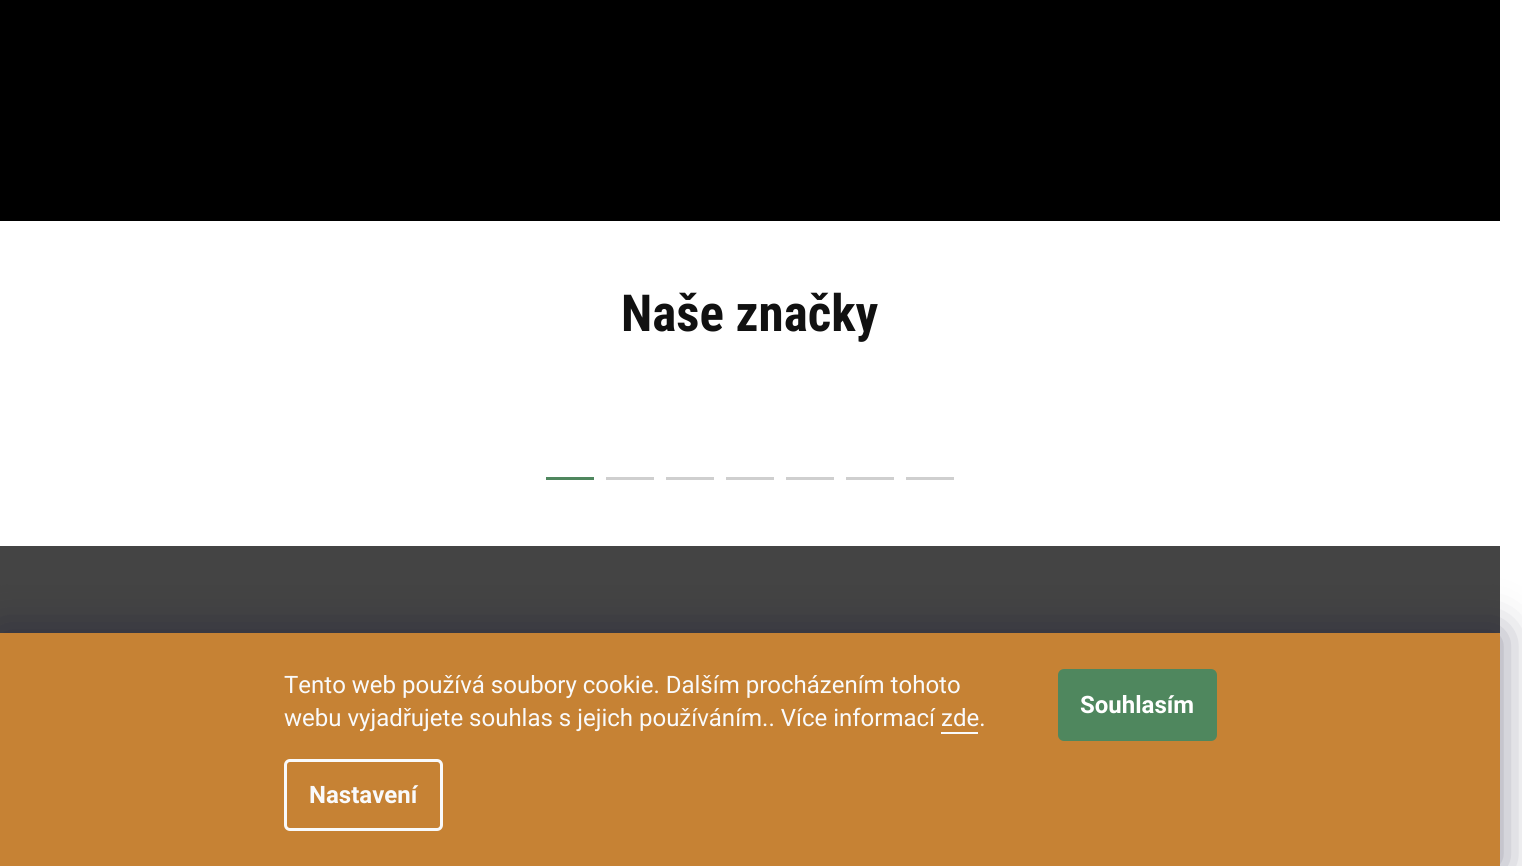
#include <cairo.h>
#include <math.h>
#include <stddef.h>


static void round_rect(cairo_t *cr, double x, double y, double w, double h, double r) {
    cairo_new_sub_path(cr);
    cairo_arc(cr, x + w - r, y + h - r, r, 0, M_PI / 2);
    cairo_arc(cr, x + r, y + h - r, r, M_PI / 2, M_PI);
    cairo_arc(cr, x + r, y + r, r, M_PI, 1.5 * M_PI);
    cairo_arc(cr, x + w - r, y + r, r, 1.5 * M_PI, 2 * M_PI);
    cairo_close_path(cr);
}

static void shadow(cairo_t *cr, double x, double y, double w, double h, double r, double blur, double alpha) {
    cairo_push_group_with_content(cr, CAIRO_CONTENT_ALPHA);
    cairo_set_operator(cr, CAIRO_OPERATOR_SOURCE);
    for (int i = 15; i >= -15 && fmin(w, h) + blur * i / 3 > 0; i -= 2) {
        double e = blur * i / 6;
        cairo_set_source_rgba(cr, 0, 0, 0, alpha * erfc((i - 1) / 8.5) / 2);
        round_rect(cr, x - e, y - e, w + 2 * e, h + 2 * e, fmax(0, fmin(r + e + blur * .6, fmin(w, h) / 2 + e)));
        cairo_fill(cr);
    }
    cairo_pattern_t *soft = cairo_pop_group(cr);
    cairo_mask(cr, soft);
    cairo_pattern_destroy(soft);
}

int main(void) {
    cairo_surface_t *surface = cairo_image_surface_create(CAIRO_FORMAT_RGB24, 1522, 866);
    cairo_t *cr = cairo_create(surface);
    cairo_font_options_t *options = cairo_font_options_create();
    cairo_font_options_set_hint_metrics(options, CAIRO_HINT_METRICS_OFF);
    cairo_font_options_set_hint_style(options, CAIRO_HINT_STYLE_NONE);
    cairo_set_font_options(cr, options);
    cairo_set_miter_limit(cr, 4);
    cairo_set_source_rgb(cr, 1, 1, 1);
    cairo_paint(cr);
    cairo_set_source_rgb(cr, 0, 0, 0);
    cairo_rectangle(cr, 0, 0, 1500, 221);
    cairo_fill(cr);
    cairo_select_font_face(cr, "Roboto Condensed", CAIRO_FONT_SLANT_NORMAL, CAIRO_FONT_WEIGHT_BOLD);
    cairo_set_font_size(cr, 51);
    cairo_set_source_rgb(cr, 0.067, 0.067, 0.067);
    cairo_move_to(cr, 621, 331);
    cairo_show_text(cr, "Naše značky");
    cairo_set_source_rgb(cr, 0.31, 0.529, 0.369);
    cairo_rectangle(cr, 546, 477, 48, 3);
    cairo_fill(cr);
    cairo_set_source_rgb(cr, 0.812, 0.812, 0.812);
    cairo_rectangle(cr, 606, 477, 48, 3);
    cairo_fill(cr);
    cairo_rectangle(cr, 666, 477, 48, 3);
    cairo_fill(cr);
    cairo_rectangle(cr, 726, 477, 48, 3);
    cairo_fill(cr);
    cairo_rectangle(cr, 786, 477, 48, 3);
    cairo_fill(cr);
    cairo_rectangle(cr, 846, 477, 48, 3);
    cairo_fill(cr);
    cairo_rectangle(cr, 906, 477, 48, 3);
    cairo_fill(cr);
    cairo_set_source_rgb(cr, 0.267, 0.267, 0.267);
    cairo_rectangle(cr, 0, 546, 1500, 87);
    cairo_fill(cr);
    cairo_set_source_rgb(cr, 0.106, 0.098, 0.224);
    shadow(cr, 0, 633, 1500, 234, 0, 22.5, 0.5);
    cairo_set_source_rgb(cr, 0.776, 0.51, 0.204);
    cairo_rectangle(cr, 0, 633, 1500, 233);
    cairo_fill(cr);
    cairo_select_font_face(cr, "Roboto", CAIRO_FONT_SLANT_NORMAL, CAIRO_FONT_WEIGHT_NORMAL);
    cairo_set_font_size(cr, 24);
    cairo_set_source_rgb(cr, 0.973, 0.98, 0.984);
    cairo_move_to(cr, 284, 693);
    cairo_show_text(cr, "Tento web používá soubory cookie. Dalším procházením tohoto");
    cairo_move_to(cr, 284, 726);
    cairo_show_text(cr, "webu vyjadřujete souhlas s jejich používáním.. Více informací zde.");
    cairo_rectangle(cr, 941, 732, 37, 2);
    cairo_fill(cr);
    round_rect(cr, 285.5, 760.5, 156, 69, 4.5);
    cairo_set_line_width(cr, 3);
    cairo_stroke(cr);
    cairo_select_font_face(cr, "Roboto", CAIRO_FONT_SLANT_NORMAL, CAIRO_FONT_WEIGHT_BOLD);
    cairo_move_to(cr, 309, 803);
    cairo_show_text(cr, "Nastavení");
    cairo_set_source_rgb(cr, 0.31, 0.529, 0.369);
    round_rect(cr, 1058, 669, 159, 72, 6);
    cairo_fill(cr);
    cairo_set_source_rgb(cr, 1, 1, 1);
    cairo_move_to(cr, 1080, 713);
    cairo_show_text(cr, "Souhlasím");
    cairo_surface_write_to_png(surface, "page.png");
    cairo_font_options_destroy(options);
    cairo_destroy(cr);
    cairo_surface_destroy(surface);
    return 0;
}
